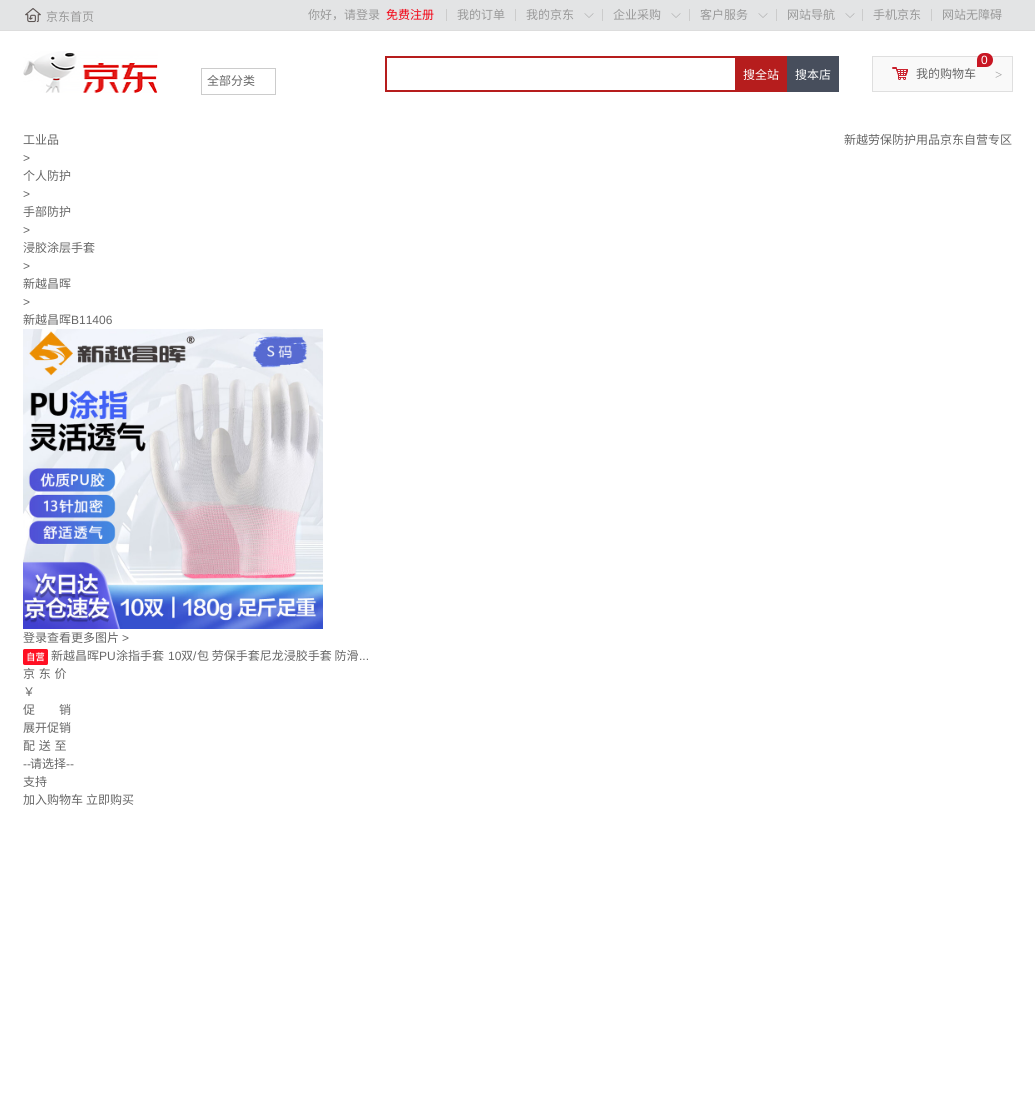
#include <cairo.h>
#include <math.h>
#include <stddef.h>


static void spaced_text(cairo_t *cr, double x, double y, const char *s, double letter, double word) {
    cairo_move_to(cr, x, y);
    while (*s) {
        char ch[5] = {0};
        int n = 0;
        do ch[n++] = *s++; while ((*s & 0xC0) == 0x80);
        cairo_show_text(cr, ch);
        cairo_rel_move_to(cr, letter + word * (*ch == ' '), 0);
    }
}

static void picture(cairo_t *cr, const char *path, double x, double y, double w, double h) {
    cairo_surface_t *image = cairo_image_surface_create_from_png(path);
    cairo_save(cr);
    cairo_set_source_surface(cr, image, x, y);
    cairo_rectangle(cr, x, y, w, h);
    cairo_fill(cr);
    cairo_restore(cr);
    cairo_surface_destroy(image);
}

int main(void) {
    cairo_surface_t *surface = cairo_image_surface_create(CAIRO_FORMAT_RGB24, 1035, 1100);
    cairo_t *cr = cairo_create(surface);
    cairo_font_options_t *options = cairo_font_options_create();
    cairo_font_options_set_hint_metrics(options, CAIRO_HINT_METRICS_OFF);
    cairo_font_options_set_hint_style(options, CAIRO_HINT_STYLE_NONE);
    cairo_set_font_options(cr, options);
    cairo_set_miter_limit(cr, 4);
    cairo_set_source_rgb(cr, 1, 1, 1);
    cairo_paint(cr);
    cairo_set_source_rgb(cr, 0.89, 0.894, 0.898);
    cairo_rectangle(cr, 0, 0, 1035, 30);
    cairo_fill(cr);
    cairo_set_source_rgb(cr, 0.867, 0.867, 0.867);
    cairo_rectangle(cr, 0, 30, 1035, 1);
    cairo_fill(cr);
    picture(cr, "img1.png", 25, 8, 16, 15);
    cairo_select_font_face(cr, "Noto Sans CJK SC", CAIRO_FONT_SLANT_NORMAL, CAIRO_FONT_WEIGHT_NORMAL);
    cairo_set_font_size(cr, 12);
    cairo_set_source_rgb(cr, 0.6, 0.6, 0.6);
    cairo_move_to(cr, 46, 21);
    cairo_show_text(cr, "京东首页");
    cairo_move_to(cr, 308, 19);
    cairo_show_text(cr, "你好，请登录");
    cairo_set_source_rgb(cr, 0.953, 0.008, 0.075);
    cairo_move_to(cr, 386, 19);
    cairo_show_text(cr, "免费注册");
    cairo_set_source_rgb(cr, 0.8, 0.8, 0.8);
    cairo_rectangle(cr, 446, 9, 1, 12);
    cairo_fill(cr);
    cairo_set_source_rgb(cr, 0.6, 0.6, 0.6);
    cairo_move_to(cr, 457, 19);
    cairo_show_text(cr, "我的订单");
    cairo_set_source_rgb(cr, 0.8, 0.8, 0.8);
    cairo_rectangle(cr, 515, 9, 1, 12);
    cairo_fill(cr);
    cairo_set_source_rgb(cr, 0.6, 0.6, 0.6);
    cairo_move_to(cr, 526, 19);
    cairo_show_text(cr, "我的京东");
    picture(cr, "img2.png", 584, 13, 10, 5);
    cairo_set_source_rgb(cr, 0.8, 0.8, 0.8);
    cairo_rectangle(cr, 602, 9, 1, 12);
    cairo_fill(cr);
    cairo_set_source_rgb(cr, 0.6, 0.6, 0.6);
    cairo_move_to(cr, 613, 19);
    cairo_show_text(cr, "企业采购");
    picture(cr, "img2.png", 671, 13, 10, 5);
    cairo_set_source_rgb(cr, 0.8, 0.8, 0.8);
    cairo_rectangle(cr, 689, 9, 1, 12);
    cairo_fill(cr);
    cairo_set_source_rgb(cr, 0.6, 0.6, 0.6);
    cairo_move_to(cr, 700, 19);
    cairo_show_text(cr, "客户服务");
    picture(cr, "img2.png", 758, 13, 10, 5);
    cairo_set_source_rgb(cr, 0.8, 0.8, 0.8);
    cairo_rectangle(cr, 776, 9, 1, 12);
    cairo_fill(cr);
    cairo_set_source_rgb(cr, 0.6, 0.6, 0.6);
    cairo_move_to(cr, 787, 19);
    cairo_show_text(cr, "网站导航");
    picture(cr, "img2.png", 845, 13, 10, 5);
    cairo_set_source_rgb(cr, 0.8, 0.8, 0.8);
    cairo_rectangle(cr, 862, 9, 1, 12);
    cairo_fill(cr);
    cairo_set_source_rgb(cr, 0.6, 0.6, 0.6);
    cairo_move_to(cr, 873, 19);
    cairo_show_text(cr, "手机京东");
    cairo_set_source_rgb(cr, 0.8, 0.8, 0.8);
    cairo_rectangle(cr, 931, 9, 1, 12);
    cairo_fill(cr);
    cairo_set_source_rgb(cr, 0.6, 0.6, 0.6);
    cairo_move_to(cr, 942, 19);
    cairo_show_text(cr, "网站无障碍");
    picture(cr, "img3.png", 23, 51, 135, 42);
    cairo_rectangle(cr, 201.5, 68.5, 74, 26);
    cairo_set_source_rgb(cr, 0.8, 0.8, 0.8);
    cairo_set_line_width(cr, 1);
    cairo_stroke(cr);
    cairo_set_source_rgb(cr, 0.4, 0.4, 0.4);
    cairo_move_to(cr, 207, 85);
    cairo_show_text(cr, "全部分类");
    cairo_set_source_rgb(cr, 0.714, 0.114, 0.114);
    cairo_rectangle(cr, 385, 56, 350, 2);
    cairo_fill(cr);
    cairo_rectangle(cr, 385, 90, 350, 2);
    cairo_fill(cr);
    cairo_rectangle(cr, 385, 56, 2, 36);
    cairo_fill(cr);
    cairo_rectangle(cr, 735, 56, 52, 36);
    cairo_fill(cr);
    cairo_set_source_rgb(cr, 1, 1, 1);
    cairo_move_to(cr, 743, 79);
    cairo_show_text(cr, "搜全站");
    cairo_set_source_rgb(cr, 0.278, 0.306, 0.361);
    cairo_rectangle(cr, 787, 56, 52, 36);
    cairo_fill(cr);
    cairo_set_source_rgb(cr, 1, 1, 1);
    cairo_move_to(cr, 795, 79);
    cairo_show_text(cr, "搜本店");
    cairo_set_source_rgb(cr, 0.976, 0.976, 0.976);
    cairo_rectangle(cr, 872.5, 56.5, 140, 35);
    cairo_fill_preserve(cr);
    cairo_set_source_rgb(cr, 0.875, 0.875, 0.875);
    cairo_stroke(cr);
    cairo_set_source_rgb(cr, 0.784, 0.086, 0.137);
    cairo_new_path(cr);
    cairo_move_to(cr, 984, 53);
    cairo_line_to(cr, 986, 53);
    cairo_curve_to(cr, 990, 53, 993, 56, 993, 60);
    cairo_curve_to(cr, 993, 64, 990, 67, 986, 67);
    cairo_line_to(cr, 977, 67);
    cairo_line_to(cr, 977, 60);
    cairo_curve_to(cr, 977, 56, 980, 53, 984, 53);
    cairo_close_path(cr);
    cairo_fill(cr);
    cairo_select_font_face(cr, "Liberation Sans", CAIRO_FONT_SLANT_NORMAL, CAIRO_FONT_WEIGHT_NORMAL);
    cairo_set_source_rgb(cr, 1, 1, 1);
    cairo_move_to(cr, 981, 64);
    cairo_show_text(cr, "0");
    picture(cr, "img4.png", 892, 67, 16, 13);
    cairo_select_font_face(cr, "Noto Sans CJK SC", CAIRO_FONT_SLANT_NORMAL, CAIRO_FONT_WEIGHT_NORMAL);
    cairo_set_source_rgb(cr, 0.4, 0.4, 0.4);
    cairo_move_to(cr, 916, 78);
    cairo_show_text(cr, "我的购物车");
    cairo_select_font_face(cr, "Liberation Serif", CAIRO_FONT_SLANT_NORMAL, CAIRO_FONT_WEIGHT_NORMAL);
    cairo_set_font_size(cr, 13);
    cairo_set_source_rgb(cr, 0.6, 0.6, 0.6);
    cairo_move_to(cr, 995, 79);
    cairo_show_text(cr, ">");
    cairo_select_font_face(cr, "Noto Sans CJK SC", CAIRO_FONT_SLANT_NORMAL, CAIRO_FONT_WEIGHT_NORMAL);
    cairo_set_font_size(cr, 12);
    cairo_set_source_rgb(cr, 0.4, 0.4, 0.4);
    cairo_move_to(cr, 23, 144);
    cairo_show_text(cr, "工业品");
    cairo_select_font_face(cr, "Liberation Sans", CAIRO_FONT_SLANT_NORMAL, CAIRO_FONT_WEIGHT_NORMAL);
    cairo_move_to(cr, 23, 162);
    cairo_show_text(cr, ">");
    cairo_select_font_face(cr, "Noto Sans CJK SC", CAIRO_FONT_SLANT_NORMAL, CAIRO_FONT_WEIGHT_NORMAL);
    cairo_move_to(cr, 23, 180);
    cairo_show_text(cr, "个人防护");
    cairo_select_font_face(cr, "Liberation Sans", CAIRO_FONT_SLANT_NORMAL, CAIRO_FONT_WEIGHT_NORMAL);
    cairo_move_to(cr, 23, 198);
    cairo_show_text(cr, ">");
    cairo_select_font_face(cr, "Noto Sans CJK SC", CAIRO_FONT_SLANT_NORMAL, CAIRO_FONT_WEIGHT_NORMAL);
    cairo_move_to(cr, 23, 216);
    cairo_show_text(cr, "手部防护");
    cairo_select_font_face(cr, "Liberation Sans", CAIRO_FONT_SLANT_NORMAL, CAIRO_FONT_WEIGHT_NORMAL);
    cairo_move_to(cr, 23, 234);
    cairo_show_text(cr, ">");
    cairo_select_font_face(cr, "Noto Sans CJK SC", CAIRO_FONT_SLANT_NORMAL, CAIRO_FONT_WEIGHT_NORMAL);
    cairo_move_to(cr, 23, 252);
    cairo_show_text(cr, "浸胶涂层手套");
    cairo_select_font_face(cr, "Liberation Sans", CAIRO_FONT_SLANT_NORMAL, CAIRO_FONT_WEIGHT_NORMAL);
    cairo_move_to(cr, 23, 270);
    cairo_show_text(cr, ">");
    cairo_select_font_face(cr, "Noto Sans CJK SC", CAIRO_FONT_SLANT_NORMAL, CAIRO_FONT_WEIGHT_NORMAL);
    cairo_move_to(cr, 23, 288);
    cairo_show_text(cr, "新越昌晖");
    cairo_select_font_face(cr, "Liberation Sans", CAIRO_FONT_SLANT_NORMAL, CAIRO_FONT_WEIGHT_NORMAL);
    cairo_move_to(cr, 23, 306);
    cairo_show_text(cr, ">");
    cairo_select_font_face(cr, "Noto Sans CJK SC", CAIRO_FONT_SLANT_NORMAL, CAIRO_FONT_WEIGHT_NORMAL);
    cairo_move_to(cr, 23, 324);
    cairo_show_text(cr, "新越昌晖");
    cairo_select_font_face(cr, "Liberation Sans", CAIRO_FONT_SLANT_NORMAL, CAIRO_FONT_WEIGHT_NORMAL);
    cairo_move_to(cr, 71, 324);
    cairo_show_text(cr, "B11406");
    cairo_select_font_face(cr, "Noto Sans CJK SC", CAIRO_FONT_SLANT_NORMAL, CAIRO_FONT_WEIGHT_NORMAL);
    cairo_move_to(cr, 844, 144);
    cairo_show_text(cr, "新越劳保防护用品京东自营专区");
    picture(cr, "img5.png", 23, 329, 300, 300);
    cairo_move_to(cr, 23, 642);
    cairo_show_text(cr, "登录查看更多图片");
    cairo_select_font_face(cr, "Liberation Sans", CAIRO_FONT_SLANT_NORMAL, CAIRO_FONT_WEIGHT_NORMAL);
    cairo_move_to(cr, 122, 642);
    cairo_show_text(cr, ">");
    picture(cr, "img6.png", 23, 649, 25, 16);
    cairo_select_font_face(cr, "Noto Sans CJK SC", CAIRO_FONT_SLANT_NORMAL, CAIRO_FONT_WEIGHT_NORMAL);
    cairo_move_to(cr, 51, 660);
    cairo_show_text(cr, "新越昌晖");
    cairo_select_font_face(cr, "Liberation Sans", CAIRO_FONT_SLANT_NORMAL, CAIRO_FONT_WEIGHT_NORMAL);
    cairo_move_to(cr, 99, 660);
    cairo_show_text(cr, "PU");
    cairo_select_font_face(cr, "Noto Sans CJK SC", CAIRO_FONT_SLANT_NORMAL, CAIRO_FONT_WEIGHT_NORMAL);
    cairo_move_to(cr, 116, 660);
    cairo_show_text(cr, "涂指手套");
    cairo_select_font_face(cr, "Liberation Sans", CAIRO_FONT_SLANT_NORMAL, CAIRO_FONT_WEIGHT_NORMAL);
    cairo_move_to(cr, 168, 660);
    cairo_show_text(cr, "10");
    cairo_select_font_face(cr, "Noto Sans CJK SC", CAIRO_FONT_SLANT_NORMAL, CAIRO_FONT_WEIGHT_NORMAL);
    cairo_move_to(cr, 181, 660);
    cairo_show_text(cr, "双");
    cairo_select_font_face(cr, "Liberation Sans", CAIRO_FONT_SLANT_NORMAL, CAIRO_FONT_WEIGHT_NORMAL);
    cairo_move_to(cr, 193, 660);
    cairo_show_text(cr, "/");
    cairo_select_font_face(cr, "Noto Sans CJK SC", CAIRO_FONT_SLANT_NORMAL, CAIRO_FONT_WEIGHT_NORMAL);
    cairo_move_to(cr, 197, 660);
    cairo_show_text(cr, "包 劳保手套尼龙浸胶手套 防滑");
    cairo_select_font_face(cr, "Liberation Sans", CAIRO_FONT_SLANT_NORMAL, CAIRO_FONT_WEIGHT_NORMAL);
    cairo_move_to(cr, 359, 660);
    cairo_show_text(cr, "...");
    cairo_select_font_face(cr, "Noto Sans CJK SC", CAIRO_FONT_SLANT_NORMAL, CAIRO_FONT_WEIGHT_NORMAL);
    spaced_text(cr, 23, 678, "京 东 价", 0, 1);
    cairo_move_to(cr, 23, 696);
    cairo_show_text(cr, "￥");
    cairo_move_to(cr, 23, 714);
    cairo_show_text(cr, "促　　销");
    cairo_move_to(cr, 23, 732);
    cairo_show_text(cr, "展开促销");
    spaced_text(cr, 23, 750, "配 送 至", 0, 1);
    cairo_select_font_face(cr, "Liberation Sans", CAIRO_FONT_SLANT_NORMAL, CAIRO_FONT_WEIGHT_NORMAL);
    cairo_move_to(cr, 23, 768);
    cairo_show_text(cr, "--");
    cairo_select_font_face(cr, "Noto Sans CJK SC", CAIRO_FONT_SLANT_NORMAL, CAIRO_FONT_WEIGHT_NORMAL);
    cairo_move_to(cr, 30, 768);
    cairo_show_text(cr, "请选择");
    cairo_select_font_face(cr, "Liberation Sans", CAIRO_FONT_SLANT_NORMAL, CAIRO_FONT_WEIGHT_NORMAL);
    cairo_move_to(cr, 66, 768);
    cairo_show_text(cr, "--");
    cairo_select_font_face(cr, "Noto Sans CJK SC", CAIRO_FONT_SLANT_NORMAL, CAIRO_FONT_WEIGHT_NORMAL);
    cairo_move_to(cr, 23, 786);
    cairo_show_text(cr, "支持");
    cairo_move_to(cr, 23, 804);
    cairo_show_text(cr, "加入购物车");
    cairo_move_to(cr, 86, 804);
    cairo_show_text(cr, "立即购买");
    cairo_surface_write_to_png(surface, "page.png");
    cairo_font_options_destroy(options);
    cairo_destroy(cr);
    cairo_surface_destroy(surface);
    return 0;
}
